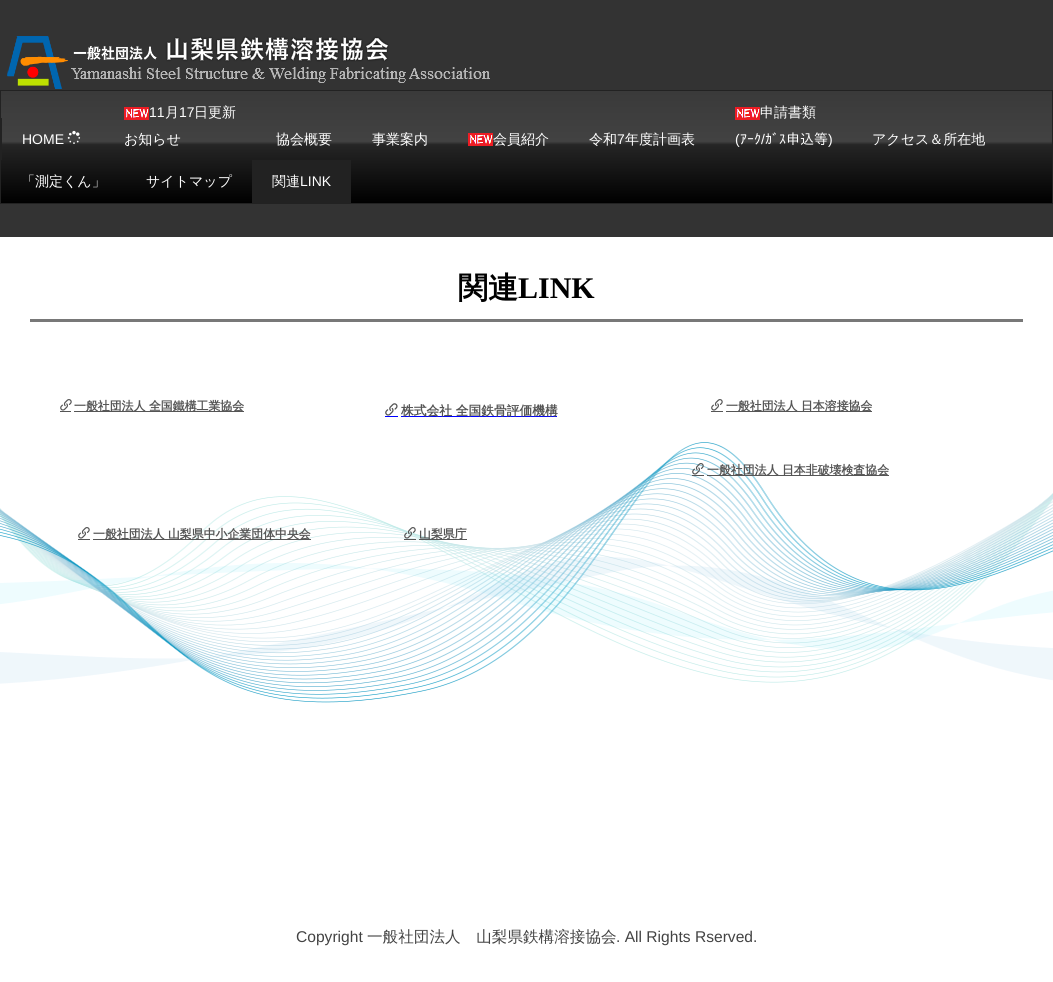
#include <cairo.h>
#include <math.h>
#include <stddef.h>


static void picture(cairo_t *cr, const char *path, double x, double y, double w, double h) {
    cairo_surface_t *image = cairo_image_surface_create_from_png(path);
    cairo_save(cr);
    cairo_set_source_surface(cr, image, x, y);
    cairo_rectangle(cr, x, y, w, h);
    cairo_fill(cr);
    cairo_restore(cr);
    cairo_surface_destroy(image);
}

int main(void) {
    cairo_surface_t *surface = cairo_image_surface_create(CAIRO_FORMAT_RGB24, 1053, 982);
    cairo_t *cr = cairo_create(surface);
    cairo_font_options_t *options = cairo_font_options_create();
    cairo_font_options_set_hint_metrics(options, CAIRO_HINT_METRICS_OFF);
    cairo_font_options_set_hint_style(options, CAIRO_HINT_STYLE_NONE);
    cairo_set_font_options(cr, options);
    cairo_set_miter_limit(cr, 4);
    cairo_pattern_t *gradient;
    cairo_set_source_rgb(cr, 1, 1, 1);
    cairo_paint(cr);
    cairo_set_source_rgb(cr, 0.2, 0.2, 0.2);
    cairo_rectangle(cr, 0, 0, 1053, 237);
    cairo_fill(cr);
    picture(cr, "img1.png", 7, 36, 483, 53);
    gradient = cairo_pattern_create_linear(527, 91, 527, 203);
    cairo_pattern_add_color_stop_rgba(gradient, 0, 0.227, 0.227, 0.227, 1);
    cairo_pattern_add_color_stop_rgba(gradient, 0.45, 0.259, 0.259, 0.259, 1);
    cairo_pattern_add_color_stop_rgba(gradient, 0.48, 0.145, 0.145, 0.145, 1);
    cairo_pattern_add_color_stop_rgba(gradient, 1, 0, 0, 0, 1);
    cairo_set_source(cr, gradient);
    cairo_pattern_destroy(gradient);
    cairo_rectangle(cr, 1, 91, 1051, 112);
    cairo_fill(cr);
    cairo_rectangle(cr, 0.5, 90.5, 1052, 113);
    cairo_set_source_rgb(cr, 0.133, 0.133, 0.133);
    cairo_set_line_width(cr, 1);
    cairo_stroke(cr);
    cairo_rectangle(cr, 1, 118, 1, 42);
    cairo_fill(cr);
    cairo_select_font_face(cr, "Liberation Sans", CAIRO_FONT_SLANT_NORMAL, CAIRO_FONT_WEIGHT_NORMAL);
    cairo_set_font_size(cr, 14);
    cairo_set_source_rgb(cr, 1, 1, 1);
    cairo_move_to(cr, 22, 144);
    cairo_show_text(cr, "HOME");
    picture(cr, "img2.png", 67, 130, 14, 14);
    picture(cr, "img3.png", 124, 107, 25, 13);
    cairo_move_to(cr, 149, 117);
    cairo_show_text(cr, "11");
    cairo_select_font_face(cr, "WenQuanYi Zen Hei Medium", CAIRO_FONT_SLANT_NORMAL, CAIRO_FONT_WEIGHT_NORMAL);
    cairo_move_to(cr, 165, 117);
    cairo_show_text(cr, "月");
    cairo_select_font_face(cr, "Liberation Sans", CAIRO_FONT_SLANT_NORMAL, CAIRO_FONT_WEIGHT_NORMAL);
    cairo_move_to(cr, 179, 117);
    cairo_show_text(cr, "17");
    cairo_select_font_face(cr, "WenQuanYi Zen Hei Medium", CAIRO_FONT_SLANT_NORMAL, CAIRO_FONT_WEIGHT_NORMAL);
    cairo_move_to(cr, 194, 117);
    cairo_show_text(cr, "日更新");
    cairo_move_to(cr, 124, 144);
    cairo_show_text(cr, "お知らせ");
    cairo_move_to(cr, 276, 144);
    cairo_show_text(cr, "協会概要");
    cairo_move_to(cr, 372, 144);
    cairo_show_text(cr, "事業案内");
    picture(cr, "img3.png", 468, 133, 25, 13);
    cairo_move_to(cr, 493, 144);
    cairo_show_text(cr, "会員紹介");
    cairo_move_to(cr, 589, 144);
    cairo_show_text(cr, "令和");
    cairo_select_font_face(cr, "Liberation Sans", CAIRO_FONT_SLANT_NORMAL, CAIRO_FONT_WEIGHT_NORMAL);
    cairo_move_to(cr, 617, 144);
    cairo_show_text(cr, "7");
    cairo_select_font_face(cr, "WenQuanYi Zen Hei Medium", CAIRO_FONT_SLANT_NORMAL, CAIRO_FONT_WEIGHT_NORMAL);
    cairo_move_to(cr, 625, 144);
    cairo_show_text(cr, "年度計画表");
    picture(cr, "img3.png", 735, 107, 25, 13);
    cairo_move_to(cr, 760, 117);
    cairo_show_text(cr, "申請書類");
    cairo_select_font_face(cr, "Liberation Sans", CAIRO_FONT_SLANT_NORMAL, CAIRO_FONT_WEIGHT_NORMAL);
    cairo_move_to(cr, 735, 144);
    cairo_show_text(cr, "(");
    cairo_select_font_face(cr, "IPAPGothic", CAIRO_FONT_SLANT_NORMAL, CAIRO_FONT_WEIGHT_NORMAL);
    cairo_move_to(cr, 740, 144);
    cairo_show_text(cr, "ｱｰｸ");
    cairo_select_font_face(cr, "Liberation Sans", CAIRO_FONT_SLANT_NORMAL, CAIRO_FONT_WEIGHT_NORMAL);
    cairo_move_to(cr, 761, 144);
    cairo_show_text(cr, "/");
    cairo_select_font_face(cr, "IPAPGothic", CAIRO_FONT_SLANT_NORMAL, CAIRO_FONT_WEIGHT_NORMAL);
    cairo_move_to(cr, 765, 144);
    cairo_show_text(cr, "ｶﾞｽ申込等");
    cairo_select_font_face(cr, "Liberation Sans", CAIRO_FONT_SLANT_NORMAL, CAIRO_FONT_WEIGHT_NORMAL);
    cairo_move_to(cr, 828, 144);
    cairo_show_text(cr, ")");
    cairo_select_font_face(cr, "WenQuanYi Zen Hei Medium", CAIRO_FONT_SLANT_NORMAL, CAIRO_FONT_WEIGHT_NORMAL);
    cairo_move_to(cr, 872, 144);
    cairo_show_text(cr, "アクセス＆所在地");
    cairo_move_to(cr, 21, 186);
    cairo_show_text(cr, "「測定くん」");
    cairo_move_to(cr, 146, 186);
    cairo_show_text(cr, "サイトマップ");
    cairo_set_source_rgb(cr, 0.133, 0.133, 0.133);
    cairo_rectangle(cr, 252, 160, 99, 43);
    cairo_fill(cr);
    cairo_set_source_rgb(cr, 1, 1, 1);
    cairo_move_to(cr, 272, 186);
    cairo_show_text(cr, "関連");
    cairo_select_font_face(cr, "Liberation Sans", CAIRO_FONT_SLANT_NORMAL, CAIRO_FONT_WEIGHT_NORMAL);
    cairo_move_to(cr, 300, 186);
    cairo_show_text(cr, "LINK");
    cairo_select_font_face(cr, "WenQuanYi Zen Hei", CAIRO_FONT_SLANT_NORMAL, CAIRO_FONT_WEIGHT_BOLD);
    cairo_set_font_size(cr, 30);
    cairo_set_source_rgb(cr, 0, 0, 0);
    cairo_move_to(cr, 458, 298);
    cairo_show_text(cr, "関連");
    cairo_select_font_face(cr, "Liberation Serif", CAIRO_FONT_SLANT_NORMAL, CAIRO_FONT_WEIGHT_BOLD);
    cairo_move_to(cr, 518, 298);
    cairo_show_text(cr, "LINK");
    cairo_set_source_rgb(cr, 0.471, 0.471, 0.471);
    cairo_rectangle(cr, 30, 319, 993, 3);
    cairo_fill(cr);
    picture(cr, "img4.png", 0, 442, 1053, 261);
    picture(cr, "img5.png", 60, 399, 12, 12);
    cairo_set_source_rgb(cr, 0.333, 0.333, 0.333);
    cairo_rectangle(cr, 74, 411, 170, 1);
    cairo_fill(cr);
    cairo_select_font_face(cr, "WenQuanYi Zen Hei", CAIRO_FONT_SLANT_NORMAL, CAIRO_FONT_WEIGHT_BOLD);
    cairo_set_font_size(cr, 11.9);
    cairo_move_to(cr, 74, 410);
    cairo_show_text(cr, "一般社団法人 全国鐵構工業協会");
    cairo_rectangle(cr, 60, 411, 11, 1);
    cairo_fill(cr);
    picture(cr, "img6.png", 385, 403, 13, 13);
    cairo_set_source_rgb(cr, 0, 0, 1);
    cairo_rectangle(cr, 401, 416, 156, 1);
    cairo_fill(cr);
    cairo_set_font_size(cr, 12.75);
    cairo_set_source_rgb(cr, 0.333, 0.333, 0.333);
    cairo_move_to(cr, 401, 415);
    cairo_show_text(cr, "株式会社 全国鉄骨評価機構");
    cairo_set_source_rgb(cr, 0, 0, 1);
    cairo_rectangle(cr, 385, 416, 13, 1);
    cairo_fill(cr);
    picture(cr, "img5.png", 711, 399, 12, 12);
    cairo_set_source_rgb(cr, 0.333, 0.333, 0.333);
    cairo_rectangle(cr, 726, 411, 146, 1);
    cairo_fill(cr);
    cairo_set_font_size(cr, 11.9);
    cairo_move_to(cr, 726, 410);
    cairo_show_text(cr, "一般社団法人 日本溶接協会");
    cairo_rectangle(cr, 711, 411, 12, 1);
    cairo_fill(cr);
    picture(cr, "img7.png", 692, 463, 12, 12);
    cairo_rectangle(cr, 707, 475, 182, 1);
    cairo_fill(cr);
    cairo_move_to(cr, 707, 474);
    cairo_show_text(cr, "一般社団法人 日本非破壊検査協会");
    cairo_rectangle(cr, 692, 475, 12, 1);
    cairo_fill(cr);
    picture(cr, "img5.png", 78, 527, 12, 12);
    cairo_rectangle(cr, 93, 539, 218, 1);
    cairo_fill(cr);
    cairo_move_to(cr, 93, 538);
    cairo_show_text(cr, "一般社団法人 山梨県中小企業団体中央会");
    cairo_rectangle(cr, 78, 539, 12, 1);
    cairo_fill(cr);
    picture(cr, "img8.png", 404, 527, 12, 12);
    cairo_rectangle(cr, 419, 539, 48, 1);
    cairo_fill(cr);
    cairo_move_to(cr, 419, 538);
    cairo_show_text(cr, "山梨県庁");
    cairo_rectangle(cr, 404, 539, 12, 1);
    cairo_fill(cr);
    cairo_select_font_face(cr, "Liberation Sans", CAIRO_FONT_SLANT_NORMAL, CAIRO_FONT_WEIGHT_NORMAL);
    cairo_set_font_size(cr, 15.6);
    cairo_set_source_rgb(cr, 0.263, 0.263, 0.263);
    cairo_move_to(cr, 296, 942);
    cairo_show_text(cr, "Copyright");
    cairo_select_font_face(cr, "WenQuanYi Zen Hei Medium", CAIRO_FONT_SLANT_NORMAL, CAIRO_FONT_WEIGHT_NORMAL);
    cairo_move_to(cr, 367, 942);
    cairo_show_text(cr, "一般社団法人　山梨県鉄構溶接協会");
    cairo_select_font_face(cr, "Liberation Sans", CAIRO_FONT_SLANT_NORMAL, CAIRO_FONT_WEIGHT_NORMAL);
    cairo_move_to(cr, 616, 942);
    cairo_show_text(cr, ". All Rights Rserved.");
    cairo_surface_write_to_png(surface, "page.png");
    cairo_font_options_destroy(options);
    cairo_destroy(cr);
    cairo_surface_destroy(surface);
    return 0;
}
